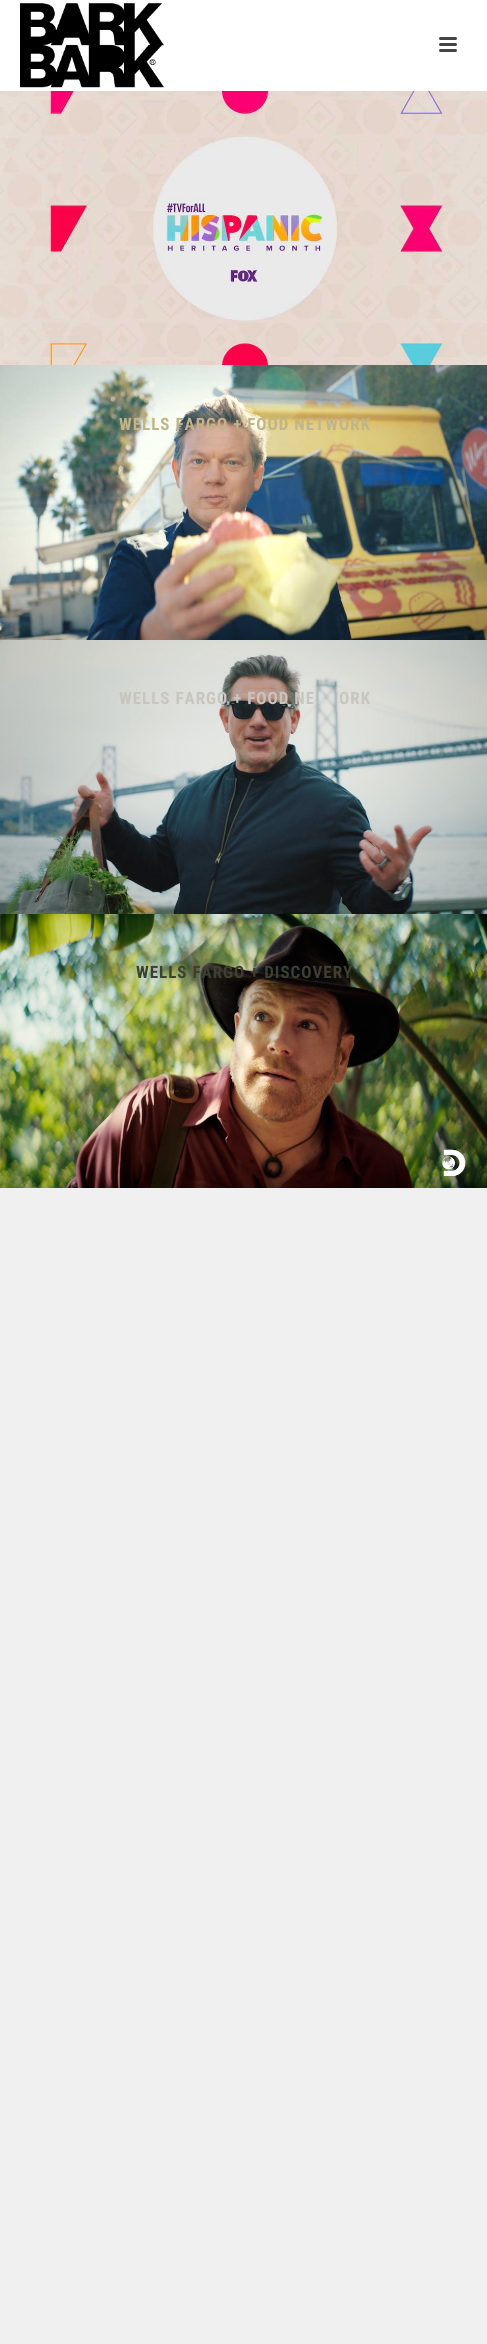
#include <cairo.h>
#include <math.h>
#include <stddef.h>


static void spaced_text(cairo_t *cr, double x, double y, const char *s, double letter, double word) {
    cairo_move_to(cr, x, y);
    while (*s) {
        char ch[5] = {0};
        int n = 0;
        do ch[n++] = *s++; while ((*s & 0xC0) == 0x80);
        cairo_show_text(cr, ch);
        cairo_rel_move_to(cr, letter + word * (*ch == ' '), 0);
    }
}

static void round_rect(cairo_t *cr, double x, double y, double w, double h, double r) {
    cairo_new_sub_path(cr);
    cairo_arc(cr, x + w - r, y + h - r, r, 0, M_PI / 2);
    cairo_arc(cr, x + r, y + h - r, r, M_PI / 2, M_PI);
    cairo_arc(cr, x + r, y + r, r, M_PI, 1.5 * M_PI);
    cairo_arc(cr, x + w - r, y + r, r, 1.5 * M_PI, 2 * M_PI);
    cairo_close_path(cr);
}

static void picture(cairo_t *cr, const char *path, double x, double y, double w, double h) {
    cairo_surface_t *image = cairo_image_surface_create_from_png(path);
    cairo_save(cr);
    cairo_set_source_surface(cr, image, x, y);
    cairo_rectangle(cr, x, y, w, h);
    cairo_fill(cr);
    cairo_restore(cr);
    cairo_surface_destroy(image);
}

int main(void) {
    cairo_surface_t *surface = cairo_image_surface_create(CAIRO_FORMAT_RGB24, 487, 2344);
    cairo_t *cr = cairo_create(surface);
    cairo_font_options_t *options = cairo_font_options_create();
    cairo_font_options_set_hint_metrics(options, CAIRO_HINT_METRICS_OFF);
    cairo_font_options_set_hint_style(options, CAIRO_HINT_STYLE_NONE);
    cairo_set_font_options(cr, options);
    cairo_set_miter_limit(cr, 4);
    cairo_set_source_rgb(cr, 0.941, 0.941, 0.941);
    cairo_paint(cr);
    cairo_set_source_rgb(cr, 1, 1, 1);
    cairo_rectangle(cr, 0, 0, 487, 91);
    cairo_fill(cr);
    picture(cr, "img1.png", 20, 3, 144, 85);
    cairo_set_source_rgb(cr, 0.267, 0.267, 0.267);
    round_rect(cr, 439, 37, 18, 3, 1.5);
    cairo_fill(cr);
    round_rect(cr, 439, 43, 18, 3, 1.5);
    cairo_fill(cr);
    round_rect(cr, 439, 49, 18, 3, 1.5);
    cairo_fill(cr);
    picture(cr, "img2.png", 0, 91, 487, 274);
    picture(cr, "img3.png", 0, 365, 487, 275);
    cairo_select_font_face(cr, "Roboto Condensed", CAIRO_FONT_SLANT_NORMAL, CAIRO_FONT_WEIGHT_BOLD);
    cairo_set_font_size(cr, 17);
    cairo_set_source_rgb(cr, 0.761, 0.706, 0.541);
    spaced_text(cr, 119, 430, "WELLS FARGO + FOOD NETWORK", 1, 0);
    picture(cr, "img4.png", 0, 640, 487, 274);
    cairo_set_source_rgb(cr, 0.784, 0.769, 0.745);
    spaced_text(cr, 119, 704, "WELLS FARGO + FOOD NE", 1, 0);
    spaced_text(cr, 339, 704, "ORK", 1, 0);
    picture(cr, "img5.png", 0, 914, 487, 274);
    cairo_set_source_rgb(cr, 0.239, 0.251, 0.192);
    spaced_text(cr, 136, 978, "WELLS FARGO + DISCOVERY", 1, 0);
    cairo_surface_write_to_png(surface, "page.png");
    cairo_font_options_destroy(options);
    cairo_destroy(cr);
    cairo_surface_destroy(surface);
    return 0;
}
